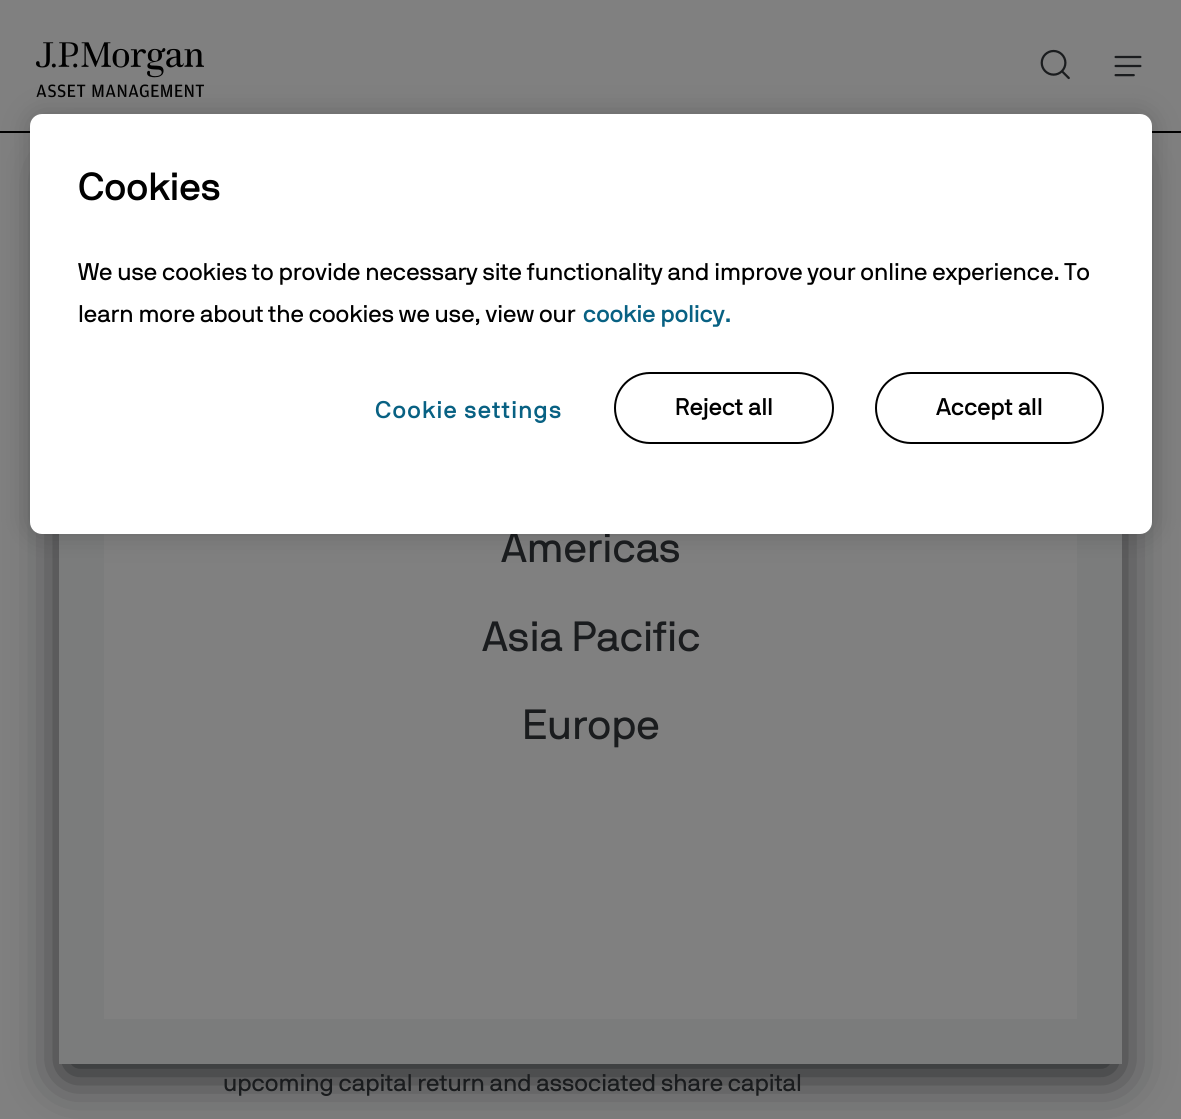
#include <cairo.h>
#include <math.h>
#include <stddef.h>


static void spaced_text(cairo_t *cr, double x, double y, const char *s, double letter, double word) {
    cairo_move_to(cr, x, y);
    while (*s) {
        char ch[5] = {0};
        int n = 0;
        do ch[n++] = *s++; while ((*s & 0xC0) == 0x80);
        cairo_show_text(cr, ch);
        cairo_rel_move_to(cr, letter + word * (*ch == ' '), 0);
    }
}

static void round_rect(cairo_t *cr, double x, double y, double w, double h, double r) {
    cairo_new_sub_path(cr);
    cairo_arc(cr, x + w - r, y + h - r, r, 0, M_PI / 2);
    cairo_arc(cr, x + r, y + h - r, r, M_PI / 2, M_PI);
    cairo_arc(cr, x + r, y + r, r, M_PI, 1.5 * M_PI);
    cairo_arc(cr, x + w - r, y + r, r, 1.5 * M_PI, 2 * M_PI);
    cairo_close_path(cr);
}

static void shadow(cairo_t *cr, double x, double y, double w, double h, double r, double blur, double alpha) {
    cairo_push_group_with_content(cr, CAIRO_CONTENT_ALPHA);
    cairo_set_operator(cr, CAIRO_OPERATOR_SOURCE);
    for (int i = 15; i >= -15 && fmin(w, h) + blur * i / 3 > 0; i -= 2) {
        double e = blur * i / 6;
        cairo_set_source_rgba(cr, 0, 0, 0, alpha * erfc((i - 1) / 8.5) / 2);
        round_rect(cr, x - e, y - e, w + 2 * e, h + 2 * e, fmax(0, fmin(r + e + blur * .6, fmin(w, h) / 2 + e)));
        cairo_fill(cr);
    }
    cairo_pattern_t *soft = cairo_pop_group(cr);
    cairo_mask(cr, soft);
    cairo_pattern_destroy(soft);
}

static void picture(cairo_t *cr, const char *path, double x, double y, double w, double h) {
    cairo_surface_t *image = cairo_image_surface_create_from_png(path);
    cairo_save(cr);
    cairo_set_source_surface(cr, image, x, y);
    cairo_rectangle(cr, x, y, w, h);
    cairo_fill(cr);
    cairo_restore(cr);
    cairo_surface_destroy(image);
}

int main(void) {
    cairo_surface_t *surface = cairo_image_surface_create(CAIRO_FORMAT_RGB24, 1181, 1119);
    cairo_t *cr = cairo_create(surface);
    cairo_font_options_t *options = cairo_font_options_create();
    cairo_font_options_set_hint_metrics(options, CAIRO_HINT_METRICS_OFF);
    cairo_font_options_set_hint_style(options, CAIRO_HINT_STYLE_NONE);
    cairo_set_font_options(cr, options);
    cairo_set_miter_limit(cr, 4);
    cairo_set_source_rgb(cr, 0.502, 0.502, 0.502);
    cairo_paint(cr);
    picture(cr, "img1.png", 36, 42, 168, 56);
    picture(cr, "img2.png", 1040, 49, 30, 31);
    picture(cr, "img3.png", 1114, 55, 28, 22);
    cairo_set_source_rgb(cr, 0, 0, 0);
    cairo_rectangle(cr, 0, 131, 1181, 2);
    cairo_fill(cr);
    cairo_set_source_rgb(cr, 0.102, 0.11, 0.118);
    shadow(cr, 65, 171, 1051, 902, 0, 25, 1);
    cairo_set_source_rgb(cr, 0.482, 0.486, 0.486);
    cairo_rectangle(cr, 59, 534, 1063, 530);
    cairo_fill(cr);
    cairo_set_source_rgb(cr, 0.502, 0.502, 0.502);
    cairo_rectangle(cr, 104, 534, 973, 485);
    cairo_fill(cr);
    cairo_set_source_rgb(cr, 0, 0, 0);
    shadow(cr, 30, 114, 1122, 420, 12, 13.5, 0.2);
    cairo_select_font_face(cr, "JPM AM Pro", CAIRO_FONT_SLANT_NORMAL, CAIRO_FONT_WEIGHT_NORMAL);
    cairo_set_font_size(cr, 42);
    cairo_set_source_rgb(cr, 0.102, 0.11, 0.118);
    cairo_move_to(cr, 501, 562);
    cairo_show_text(cr, "Americas");
    cairo_set_source_rgb(cr, 1, 1, 1);
    round_rect(cr, 30, 114, 1122, 420, 12);
    cairo_fill(cr);
    cairo_select_font_face(cr, "JPM AM Pro Medium", CAIRO_FONT_SLANT_NORMAL, CAIRO_FONT_WEIGHT_NORMAL);
    cairo_set_font_size(cr, 39);
    cairo_set_source_rgb(cr, 0, 0, 0);
    cairo_move_to(cr, 78, 200);
    cairo_show_text(cr, "Cookies");
    cairo_select_font_face(cr, "JPM AM Pro", CAIRO_FONT_SLANT_NORMAL, CAIRO_FONT_WEIGHT_NORMAL);
    cairo_set_font_size(cr, 24);
    cairo_move_to(cr, 78, 280);
    cairo_show_text(cr, "We use cookies to provide necessary site functionality and improve your online experience. To");
    cairo_move_to(cr, 78, 322);
    cairo_show_text(cr, "learn more about the cookies we use, view our");
    cairo_select_font_face(cr, "JPM AM Pro Medium", CAIRO_FONT_SLANT_NORMAL, CAIRO_FONT_WEIGHT_NORMAL);
    cairo_set_source_rgb(cr, 0.035, 0.38, 0.514);
    cairo_move_to(cr, 583, 322);
    cairo_show_text(cr, "cookie policy.");
    spaced_text(cr, 375, 418, "Cookie settings", 1.25, 0);
    round_rect(cr, 615, 373, 218, 70, 35);
    cairo_set_source_rgb(cr, 0, 0, 0);
    cairo_stroke(cr);
    cairo_move_to(cr, 675, 415);
    cairo_show_text(cr, "Reject all");
    round_rect(cr, 876, 373, 227, 70, 35);
    cairo_stroke(cr);
    cairo_move_to(cr, 936, 415);
    cairo_show_text(cr, "Accept all");
    cairo_select_font_face(cr, "JPM AM Pro", CAIRO_FONT_SLANT_NORMAL, CAIRO_FONT_WEIGHT_NORMAL);
    cairo_set_font_size(cr, 42);
    cairo_set_source_rgb(cr, 0.102, 0.11, 0.118);
    cairo_move_to(cr, 482, 651);
    cairo_show_text(cr, "Asia Pacific");
    cairo_move_to(cr, 522, 739);
    cairo_show_text(cr, "Europe");
    cairo_set_font_size(cr, 24);
    cairo_move_to(cr, 223, 1091);
    cairo_show_text(cr, "upcoming capital return and associated share capital");
    cairo_surface_write_to_png(surface, "page.png");
    cairo_font_options_destroy(options);
    cairo_destroy(cr);
    cairo_surface_destroy(surface);
    return 0;
}
